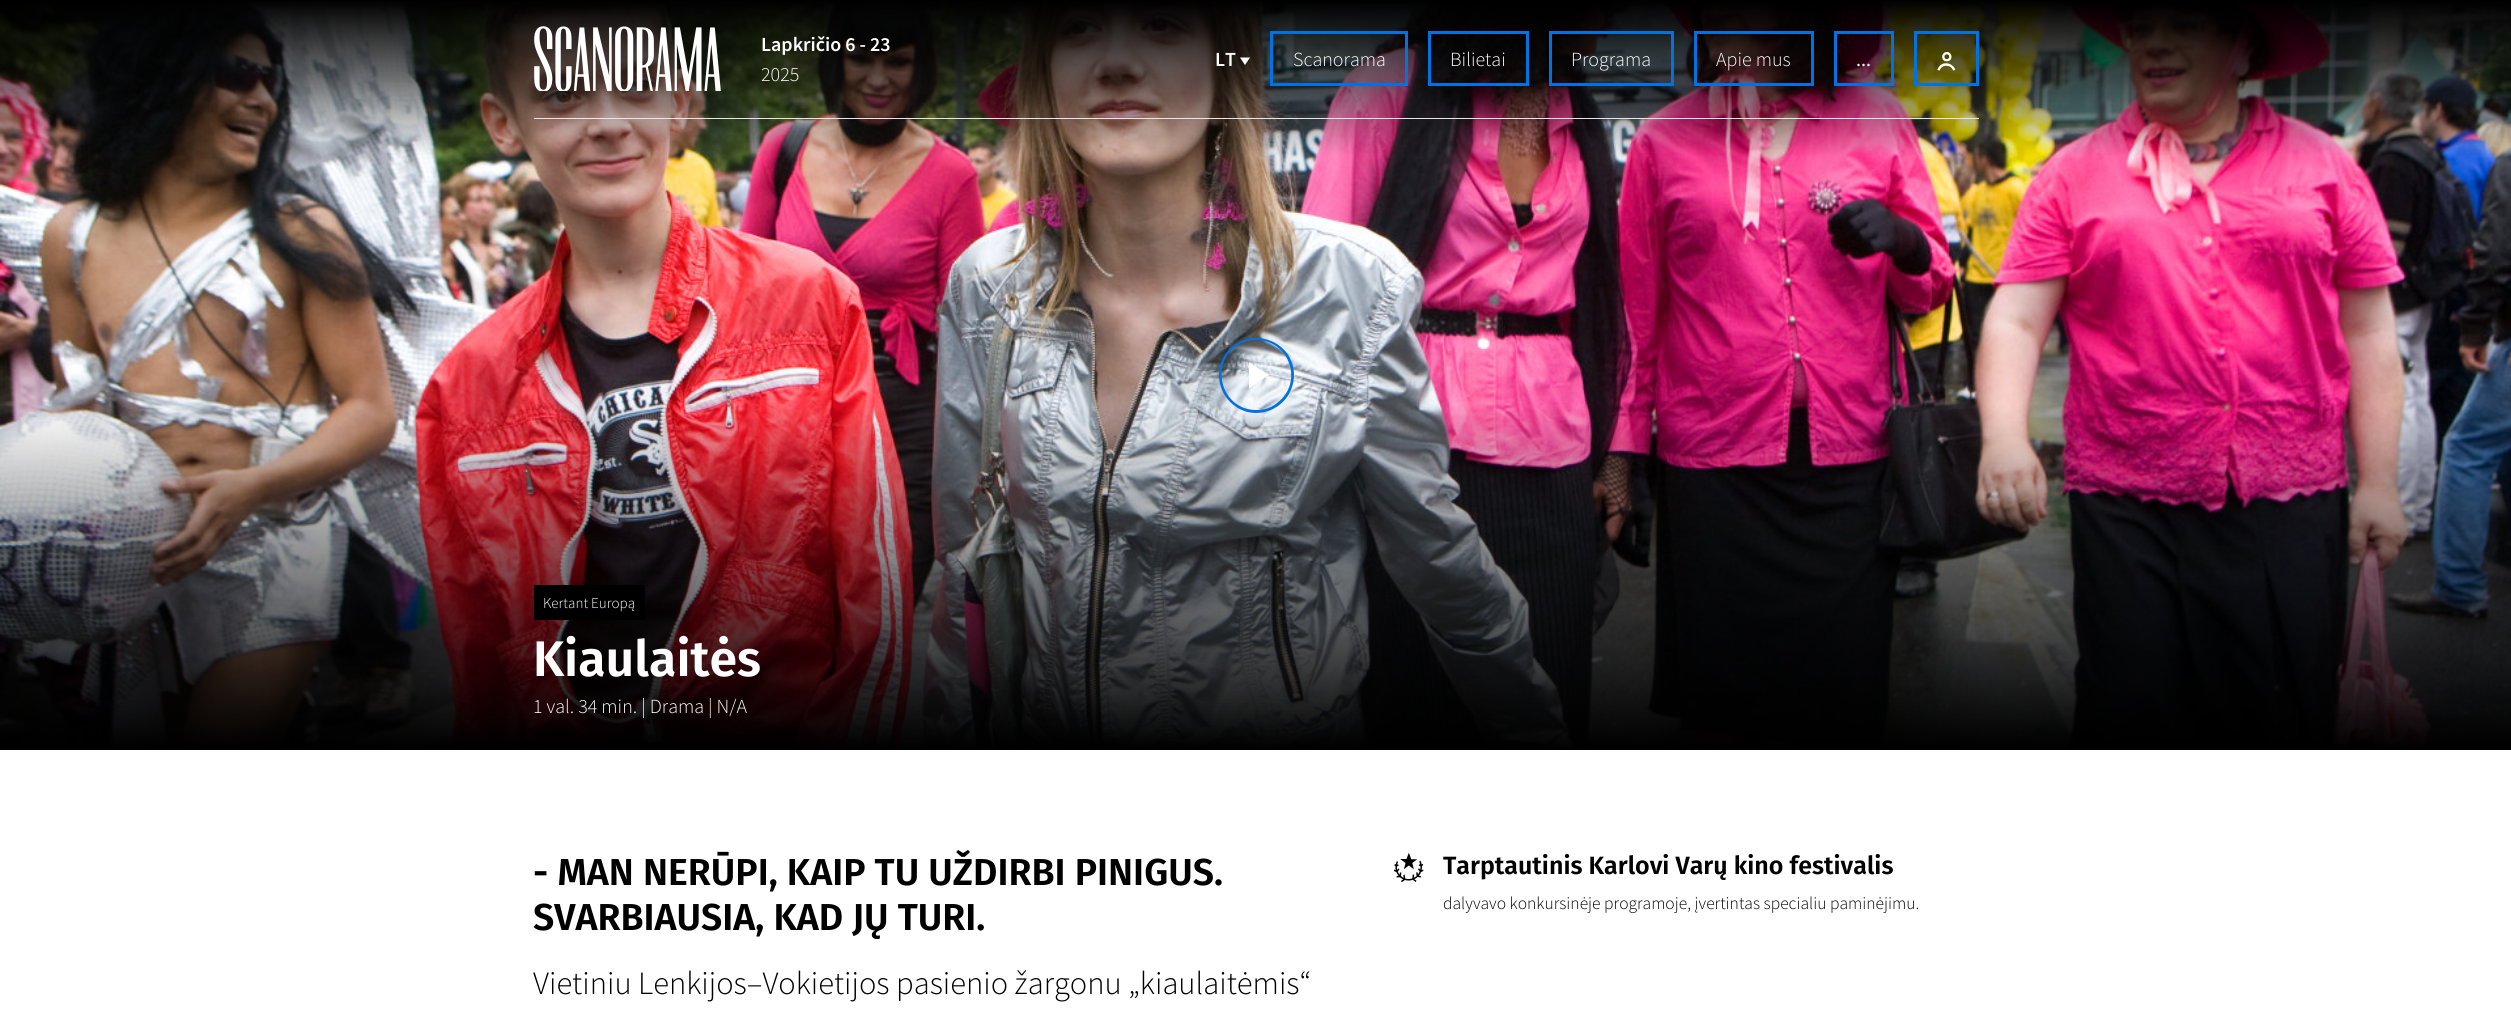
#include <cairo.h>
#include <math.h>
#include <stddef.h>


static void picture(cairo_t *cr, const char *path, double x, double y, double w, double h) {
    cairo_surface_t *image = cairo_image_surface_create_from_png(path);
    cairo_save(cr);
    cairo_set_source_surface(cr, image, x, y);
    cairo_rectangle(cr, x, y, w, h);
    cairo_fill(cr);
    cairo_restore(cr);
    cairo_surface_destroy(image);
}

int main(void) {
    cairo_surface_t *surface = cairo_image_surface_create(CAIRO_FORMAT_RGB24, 2511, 1016);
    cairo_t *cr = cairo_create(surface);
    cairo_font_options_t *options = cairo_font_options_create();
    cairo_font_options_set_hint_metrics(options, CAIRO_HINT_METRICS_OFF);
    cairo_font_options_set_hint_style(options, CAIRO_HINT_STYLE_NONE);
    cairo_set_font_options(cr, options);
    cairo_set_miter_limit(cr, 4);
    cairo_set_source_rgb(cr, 1, 1, 1);
    cairo_paint(cr);
    picture(cr, "img1.png", 0, 0, 2511, 750);
    picture(cr, "img2.png", 534, 26, 187, 65);
    cairo_select_font_face(cr, "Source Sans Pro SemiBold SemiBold", CAIRO_FONT_SLANT_NORMAL, CAIRO_FONT_WEIGHT_NORMAL);
    cairo_set_font_size(cr, 20);
    cairo_set_source_rgb(cr, 1, 1, 1);
    cairo_move_to(cr, 761, 51);
    cairo_show_text(cr, "Lapkričio 6 - 23");
    cairo_select_font_face(cr, "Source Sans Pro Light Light", CAIRO_FONT_SLANT_NORMAL, CAIRO_FONT_WEIGHT_NORMAL);
    cairo_move_to(cr, 761, 81);
    cairo_show_text(cr, "2025");
    cairo_select_font_face(cr, "Source Sans Pro SemiBold SemiBold", CAIRO_FONT_SLANT_NORMAL, CAIRO_FONT_WEIGHT_NORMAL);
    cairo_move_to(cr, 1215, 66);
    cairo_show_text(cr, "LT");
    picture(cr, "img3.png", 1240, 57, 10, 8);
    cairo_rectangle(cr, 1271.5, 32.5, 135, 52);
    cairo_set_source_rgb(cr, 0, 0.447, 0.882);
    cairo_set_line_width(cr, 3);
    cairo_stroke(cr);
    cairo_select_font_face(cr, "Source Sans Pro Light Light", CAIRO_FONT_SLANT_NORMAL, CAIRO_FONT_WEIGHT_NORMAL);
    cairo_set_source_rgb(cr, 1, 1, 1);
    cairo_move_to(cr, 1293, 66);
    cairo_show_text(cr, "Scanorama");
    cairo_rectangle(cr, 1429.5, 32.5, 98, 52);
    cairo_set_source_rgb(cr, 0, 0.447, 0.882);
    cairo_stroke(cr);
    cairo_set_source_rgb(cr, 1, 1, 1);
    cairo_move_to(cr, 1450, 66);
    cairo_show_text(cr, "Bilietai");
    cairo_rectangle(cr, 1550.5, 32.5, 122, 52);
    cairo_set_source_rgb(cr, 0, 0.447, 0.882);
    cairo_stroke(cr);
    cairo_set_source_rgb(cr, 1, 1, 1);
    cairo_move_to(cr, 1571, 66);
    cairo_show_text(cr, "Programa");
    cairo_rectangle(cr, 1695.5, 32.5, 117, 52);
    cairo_set_source_rgb(cr, 0, 0.447, 0.882);
    cairo_stroke(cr);
    cairo_set_source_rgb(cr, 1, 1, 1);
    cairo_move_to(cr, 1716, 66);
    cairo_show_text(cr, "Apie mus");
    cairo_rectangle(cr, 1835.5, 32.5, 57, 52);
    cairo_set_source_rgb(cr, 0, 0.447, 0.882);
    cairo_stroke(cr);
    cairo_select_font_face(cr, "Source Sans Pro", CAIRO_FONT_SLANT_NORMAL, CAIRO_FONT_WEIGHT_NORMAL);
    cairo_set_source_rgb(cr, 1, 1, 1);
    cairo_move_to(cr, 1856, 66);
    cairo_show_text(cr, "...");
    cairo_rectangle(cr, 1915.5, 32.5, 62, 52);
    cairo_set_source_rgb(cr, 0, 0.447, 0.882);
    cairo_stroke(cr);
    picture(cr, "img4.png", 1937, 52, 19, 19);
    cairo_set_source_rgb(cr, 0.898, 0.906, 0.922);
    cairo_rectangle(cr, 534, 118, 1445, 1);
    cairo_fill(cr);
    cairo_set_source_rgb(cr, 0, 0.447, 0.882);
    cairo_new_path(cr);
    cairo_move_to(cr, 1256, 340);
    cairo_curve_to(cr, 1249, 340, 1241, 342, 1235, 347);
    cairo_curve_to(cr, 1209, 367, 1223, 410, 1256, 410);
    cairo_curve_to(cr, 1264, 410, 1271, 408, 1277, 403);
    cairo_curve_to(cr, 1304, 383, 1290, 340, 1256, 340);
    cairo_move_to(cr, 1256, 338);
    cairo_curve_to(cr, 1277, 338, 1294, 354, 1294, 375);
    cairo_curve_to(cr, 1294, 396, 1277, 413, 1256, 413);
    cairo_curve_to(cr, 1236, 413, 1219, 396, 1219, 375);
    cairo_curve_to(cr, 1219, 354, 1236, 338, 1256, 338);
    cairo_close_path(cr);
    cairo_fill(cr);
    cairo_set_source_rgb(cr, 1, 1, 1);
    cairo_new_path(cr);
    cairo_move_to(cr, 1249, 362.5);
    cairo_line_to(cr, 1249, 388.5);
    cairo_line_to(cr, 1269, 375);
    cairo_close_path(cr);
    cairo_fill(cr);
    cairo_set_source_rgb(cr, 0, 0, 0);
    cairo_rectangle(cr, 534, 585, 111, 35);
    cairo_fill(cr);
    cairo_select_font_face(cr, "Source Sans Pro Light Light", CAIRO_FONT_SLANT_NORMAL, CAIRO_FONT_WEIGHT_NORMAL);
    cairo_set_font_size(cr, 15);
    cairo_set_source_rgb(cr, 1, 1, 1);
    cairo_move_to(cr, 543, 608);
    cairo_show_text(cr, "Kertant Europą");
    cairo_select_font_face(cr, "Fira Sans SemiBold", CAIRO_FONT_SLANT_NORMAL, CAIRO_FONT_WEIGHT_NORMAL);
    cairo_set_font_size(cr, 50);
    cairo_move_to(cr, 533, 676);
    cairo_show_text(cr, "Kiaulaitės");
    cairo_select_font_face(cr, "Source Sans Pro Light Light", CAIRO_FONT_SLANT_NORMAL, CAIRO_FONT_WEIGHT_NORMAL);
    cairo_set_font_size(cr, 20);
    cairo_move_to(cr, 533, 713);
    cairo_show_text(cr, "1 val. 34 min. | Drama | N/A");
    cairo_select_font_face(cr, "Fira Sans SemiBold", CAIRO_FONT_SLANT_NORMAL, CAIRO_FONT_WEIGHT_NORMAL);
    cairo_set_font_size(cr, 37.5);
    cairo_set_source_rgb(cr, 0, 0, 0);
    cairo_move_to(cr, 533, 885);
    cairo_show_text(cr, "- MAN NERŪPI, KAIP TU UŽDIRBI PINIGUS.");
    cairo_move_to(cr, 533, 930);
    cairo_show_text(cr, "SVARBIAUSIA, KAD JŲ TURI.");
    cairo_select_font_face(cr, "Source Sans Pro Light Light", CAIRO_FONT_SLANT_NORMAL, CAIRO_FONT_WEIGHT_NORMAL);
    cairo_set_font_size(cr, 32.5);
    cairo_move_to(cr, 533, 994);
    cairo_show_text(cr, "Vietiniu Lenkijos–Vokietijos pasienio žargonu „kiaulaitėmis“");
    picture(cr, "img5.png", 1394, 853, 30, 29);
    cairo_select_font_face(cr, "Fira Sans SemiBold", CAIRO_FONT_SLANT_NORMAL, CAIRO_FONT_WEIGHT_NORMAL);
    cairo_set_font_size(cr, 25);
    cairo_move_to(cr, 1443, 874);
    cairo_show_text(cr, "Tarptautinis Karlovi Varų kino festivalis");
    cairo_select_font_face(cr, "Source Sans Pro Light Light", CAIRO_FONT_SLANT_NORMAL, CAIRO_FONT_WEIGHT_NORMAL);
    cairo_set_font_size(cr, 17.5);
    cairo_move_to(cr, 1443, 909);
    cairo_show_text(cr, "dalyvavo konkursinėje programoje, įvertintas specialiu paminėjimu.");
    cairo_surface_write_to_png(surface, "page.png");
    cairo_font_options_destroy(options);
    cairo_destroy(cr);
    cairo_surface_destroy(surface);
    return 0;
}
